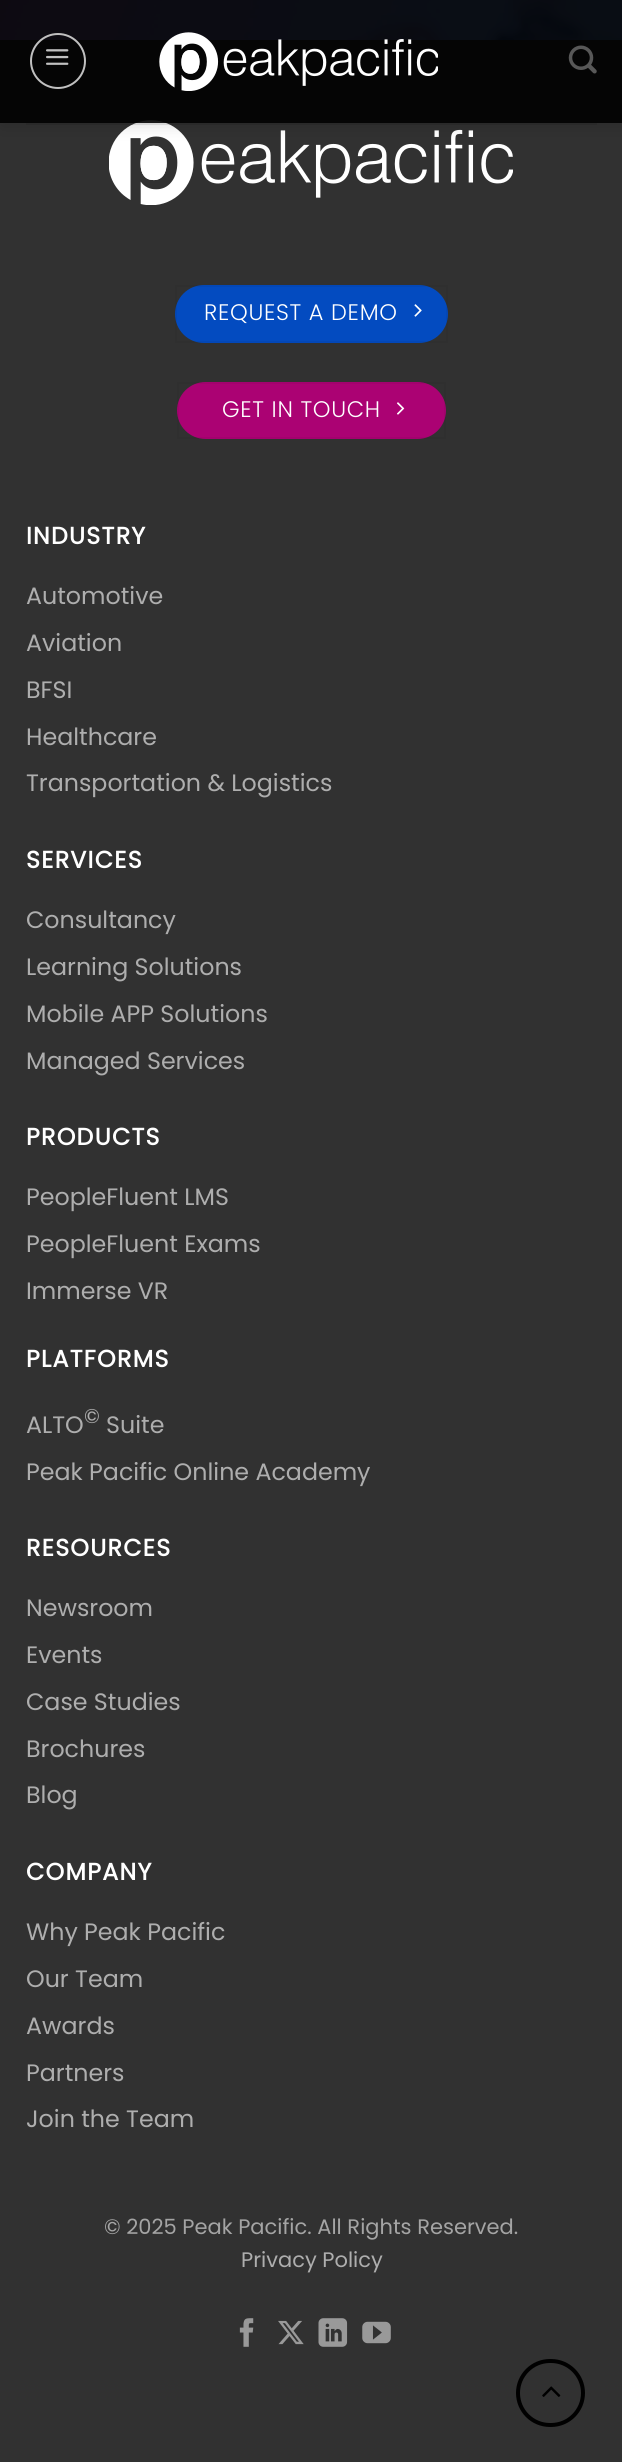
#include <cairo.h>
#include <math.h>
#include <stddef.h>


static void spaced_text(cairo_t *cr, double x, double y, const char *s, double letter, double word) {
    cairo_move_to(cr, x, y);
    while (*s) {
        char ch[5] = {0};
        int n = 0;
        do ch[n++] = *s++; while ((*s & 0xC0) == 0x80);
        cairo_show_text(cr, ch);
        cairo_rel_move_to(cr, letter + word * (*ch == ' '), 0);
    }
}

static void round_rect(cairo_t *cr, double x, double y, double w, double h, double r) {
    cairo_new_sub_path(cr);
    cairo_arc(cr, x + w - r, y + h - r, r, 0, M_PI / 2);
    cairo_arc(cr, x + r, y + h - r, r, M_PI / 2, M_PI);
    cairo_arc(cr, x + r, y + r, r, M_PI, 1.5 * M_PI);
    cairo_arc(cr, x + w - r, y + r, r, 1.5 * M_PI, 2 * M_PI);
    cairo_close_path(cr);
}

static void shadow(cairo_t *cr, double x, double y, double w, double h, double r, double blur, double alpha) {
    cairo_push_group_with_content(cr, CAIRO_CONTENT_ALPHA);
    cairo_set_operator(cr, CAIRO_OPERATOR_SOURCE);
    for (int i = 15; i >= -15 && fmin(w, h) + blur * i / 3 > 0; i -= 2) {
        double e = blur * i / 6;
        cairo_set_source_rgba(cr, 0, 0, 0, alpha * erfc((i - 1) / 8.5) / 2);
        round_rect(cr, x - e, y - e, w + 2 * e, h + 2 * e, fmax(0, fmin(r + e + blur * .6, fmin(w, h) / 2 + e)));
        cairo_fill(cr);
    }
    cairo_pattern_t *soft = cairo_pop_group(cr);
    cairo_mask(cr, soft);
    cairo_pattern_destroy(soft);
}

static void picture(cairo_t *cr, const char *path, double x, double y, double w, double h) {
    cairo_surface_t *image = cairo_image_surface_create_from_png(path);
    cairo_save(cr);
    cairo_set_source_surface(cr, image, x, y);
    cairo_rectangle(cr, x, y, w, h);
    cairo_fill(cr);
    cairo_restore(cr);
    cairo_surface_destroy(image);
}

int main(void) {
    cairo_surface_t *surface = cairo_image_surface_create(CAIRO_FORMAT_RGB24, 622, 2462);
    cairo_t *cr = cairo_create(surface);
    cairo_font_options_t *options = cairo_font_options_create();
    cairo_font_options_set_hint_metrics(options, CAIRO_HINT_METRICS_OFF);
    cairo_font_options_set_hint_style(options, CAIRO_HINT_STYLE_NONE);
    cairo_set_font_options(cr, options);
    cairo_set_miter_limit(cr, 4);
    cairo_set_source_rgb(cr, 1, 1, 1);
    cairo_paint(cr);
    picture(cr, "img4.png", 0, 0, 622, 40);
    cairo_set_source_rgb(cr, 0.192, 0.192, 0.192);
    cairo_rectangle(cr, 0, 40, 622, 2422);
    cairo_fill(cr);
    picture(cr, "img5.png", 109, 120, 404, 85);
    cairo_save(cr);
    cairo_set_fill_rule(cr, CAIRO_FILL_RULE_EVEN_ODD);
    cairo_new_path(cr);
    cairo_move_to(cr, 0, 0);
    cairo_line_to(cr, 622, 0);
    cairo_line_to(cr, 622, 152);
    cairo_line_to(cr, 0, 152);
    cairo_close_path(cr);
    cairo_move_to(cr, 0, 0);
    cairo_line_to(cr, 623, 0);
    cairo_line_to(cr, 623, 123);
    cairo_line_to(cr, 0, 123);
    cairo_close_path(cr);
    cairo_clip(cr);
    cairo_set_source_rgb(cr, 0, 0, 0);
    shadow(cr, 2, 2, 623, 122, 0, 9, 0.15);
    cairo_restore(cr);
    cairo_set_source_rgba(cr, 0, 0, 0, 0.9);
    cairo_rectangle(cr, 0, 0, 622, 123);
    cairo_fill(cr);
    cairo_arc(cr, 58, 61, 27, 0, 2 * M_PI);
    cairo_set_source_rgb(cr, 0.753, 0.753, 0.753);
    cairo_stroke(cr);
    picture(cr, "img1.png", 46, 49, 23, 16);
    picture(cr, "img2.png", 159, 32, 279, 59);
    picture(cr, "img3.png", 568, 45, 29, 29);
    cairo_set_source_rgba(cr, 0, 0, 0, 0.1);
    cairo_rectangle(cr, 26, 123, 571, 2);
    cairo_fill(cr);
    cairo_set_source_rgb(cr, 0.012, 0.294, 0.753);
    round_rect(cr, 175, 285, 273, 58, 29);
    cairo_fill(cr);
    cairo_rectangle(cr, 176, 286, 271, 56);
    cairo_set_source_rgba(cr, 0, 0, 0, 0.05);
    cairo_stroke(cr);
    cairo_select_font_face(cr, "Poppins Light", CAIRO_FONT_SLANT_NORMAL, CAIRO_FONT_WEIGHT_NORMAL);
    cairo_set_font_size(cr, 22.5);
    cairo_set_source_rgb(cr, 1, 1, 1);
    spaced_text(cr, 204, 320, "REQUEST A DEMO", 0.7, 0);
    picture(cr, "img6.png", 414, 304, 8, 13);
    cairo_set_source_rgb(cr, 0.671, 0.008, 0.451);
    round_rect(cr, 177, 382, 269, 57, 28.5);
    cairo_fill(cr);
    cairo_rectangle(cr, 178, 383, 267, 55);
    cairo_set_source_rgba(cr, 0, 0, 0, 0.05);
    cairo_stroke(cr);
    cairo_set_source_rgb(cr, 1, 1, 1);
    spaced_text(cr, 222, 417, "GET IN TOUCH", 0.7, 0);
    picture(cr, "img7.png", 397, 402, 8, 13);
    cairo_select_font_face(cr, "Poppins", CAIRO_FONT_SLANT_NORMAL, CAIRO_FONT_WEIGHT_BOLD);
    cairo_set_font_size(cr, 23.75);
    spaced_text(cr, 26, 544, "INDUSTRY", 1.25, 0);
    cairo_select_font_face(cr, "Poppins", CAIRO_FONT_SLANT_NORMAL, CAIRO_FONT_WEIGHT_NORMAL);
    cairo_set_source_rgb(cr, 0.682, 0.682, 0.682);
    cairo_move_to(cr, 26, 604);
    cairo_show_text(cr, "Automotive");
    cairo_move_to(cr, 26, 651);
    cairo_show_text(cr, "Aviation");
    cairo_move_to(cr, 26, 698);
    cairo_show_text(cr, "BFSI");
    cairo_move_to(cr, 26, 745);
    cairo_show_text(cr, "Healthcare");
    cairo_move_to(cr, 26, 791);
    cairo_show_text(cr, "Transportation & Logistics");
    cairo_select_font_face(cr, "Poppins", CAIRO_FONT_SLANT_NORMAL, CAIRO_FONT_WEIGHT_BOLD);
    cairo_set_source_rgb(cr, 1, 1, 1);
    spaced_text(cr, 26, 868, "SERVICES", 1.25, 0);
    cairo_select_font_face(cr, "Poppins", CAIRO_FONT_SLANT_NORMAL, CAIRO_FONT_WEIGHT_NORMAL);
    cairo_set_source_rgb(cr, 0.682, 0.682, 0.682);
    cairo_move_to(cr, 26, 928);
    cairo_show_text(cr, "Consultancy");
    cairo_move_to(cr, 26, 975);
    cairo_show_text(cr, "Learning Solutions");
    cairo_move_to(cr, 26, 1022);
    cairo_show_text(cr, "Mobile APP Solutions");
    cairo_move_to(cr, 26, 1069);
    cairo_show_text(cr, "Managed Services");
    cairo_select_font_face(cr, "Poppins", CAIRO_FONT_SLANT_NORMAL, CAIRO_FONT_WEIGHT_BOLD);
    cairo_set_source_rgb(cr, 1, 1, 1);
    spaced_text(cr, 26, 1145, "PRODUCTS", 1.25, 0);
    cairo_select_font_face(cr, "Poppins", CAIRO_FONT_SLANT_NORMAL, CAIRO_FONT_WEIGHT_NORMAL);
    cairo_set_source_rgb(cr, 0.682, 0.682, 0.682);
    cairo_move_to(cr, 26, 1205);
    cairo_show_text(cr, "PeopleFluent LMS");
    cairo_move_to(cr, 26, 1252);
    cairo_show_text(cr, "PeopleFluent Exams");
    cairo_move_to(cr, 26, 1299);
    cairo_show_text(cr, "Immerse VR");
    cairo_select_font_face(cr, "Poppins", CAIRO_FONT_SLANT_NORMAL, CAIRO_FONT_WEIGHT_BOLD);
    cairo_set_source_rgb(cr, 1, 1, 1);
    spaced_text(cr, 26, 1367, "PLATFORMS", 1.25, 0);
    cairo_select_font_face(cr, "Poppins", CAIRO_FONT_SLANT_NORMAL, CAIRO_FONT_WEIGHT_NORMAL);
    cairo_set_source_rgb(cr, 0.682, 0.682, 0.682);
    cairo_move_to(cr, 26, 1433);
    cairo_show_text(cr, "ALTO");
    cairo_set_font_size(cr, 20);
    cairo_move_to(cr, 84, 1423);
    cairo_show_text(cr, "©");
    cairo_set_font_size(cr, 23.75);
    cairo_move_to(cr, 106, 1433);
    cairo_show_text(cr, "Suite");
    cairo_move_to(cr, 26, 1480);
    cairo_show_text(cr, "Peak Pacific Online Academy");
    cairo_select_font_face(cr, "Poppins", CAIRO_FONT_SLANT_NORMAL, CAIRO_FONT_WEIGHT_BOLD);
    cairo_set_source_rgb(cr, 1, 1, 1);
    spaced_text(cr, 26, 1556, "RESOURCES", 1.25, 0);
    cairo_select_font_face(cr, "Poppins", CAIRO_FONT_SLANT_NORMAL, CAIRO_FONT_WEIGHT_NORMAL);
    cairo_set_source_rgb(cr, 0.682, 0.682, 0.682);
    cairo_move_to(cr, 26, 1616);
    cairo_show_text(cr, "Newsroom");
    cairo_move_to(cr, 26, 1663);
    cairo_show_text(cr, "Events");
    cairo_move_to(cr, 26, 1710);
    cairo_show_text(cr, "Case Studies");
    cairo_move_to(cr, 26, 1757);
    cairo_show_text(cr, "Brochures");
    cairo_move_to(cr, 26, 1803);
    cairo_show_text(cr, "Blog");
    cairo_select_font_face(cr, "Poppins", CAIRO_FONT_SLANT_NORMAL, CAIRO_FONT_WEIGHT_BOLD);
    cairo_set_source_rgb(cr, 1, 1, 1);
    spaced_text(cr, 26, 1880, "COMPANY", 1.25, 0);
    cairo_select_font_face(cr, "Poppins", CAIRO_FONT_SLANT_NORMAL, CAIRO_FONT_WEIGHT_NORMAL);
    cairo_set_source_rgb(cr, 0.682, 0.682, 0.682);
    cairo_move_to(cr, 26, 1940);
    cairo_show_text(cr, "Why Peak Pacific");
    cairo_move_to(cr, 26, 1987);
    cairo_show_text(cr, "Our Team");
    cairo_move_to(cr, 26, 2034);
    cairo_show_text(cr, "Awards");
    cairo_move_to(cr, 26, 2081);
    cairo_show_text(cr, "Partners");
    cairo_move_to(cr, 26, 2127);
    cairo_show_text(cr, "Join the Team");
    cairo_set_font_size(cr, 21);
    cairo_set_source_rgb(cr, 0.643, 0.643, 0.643);
    cairo_move_to(cr, 104, 2234);
    cairo_show_text(cr, "© 2025 Peak Pacific. All Rights Reserved.");
    cairo_set_source_rgb(cr, 0.682, 0.682, 0.682);
    cairo_move_to(cr, 241, 2267);
    cairo_show_text(cr, "Privacy Policy");
    picture(cr, "img8.png", 239, 2318, 15, 29);
    picture(cr, "img9.png", 278, 2320, 26, 25);
    picture(cr, "img10.png", 318, 2318, 30, 29);
    picture(cr, "img11.png", 362, 2321, 29, 23);
    round_rect(cr, 518, 2361, 65, 64, 32);
    cairo_set_source_rgb(cr, 0, 0, 0);
    cairo_set_line_width(cr, 4);
    cairo_stroke(cr);
    picture(cr, "img12.png", 542, 2386, 19, 11);
    cairo_surface_write_to_png(surface, "page.png");
    cairo_font_options_destroy(options);
    cairo_destroy(cr);
    cairo_surface_destroy(surface);
    return 0;
}
